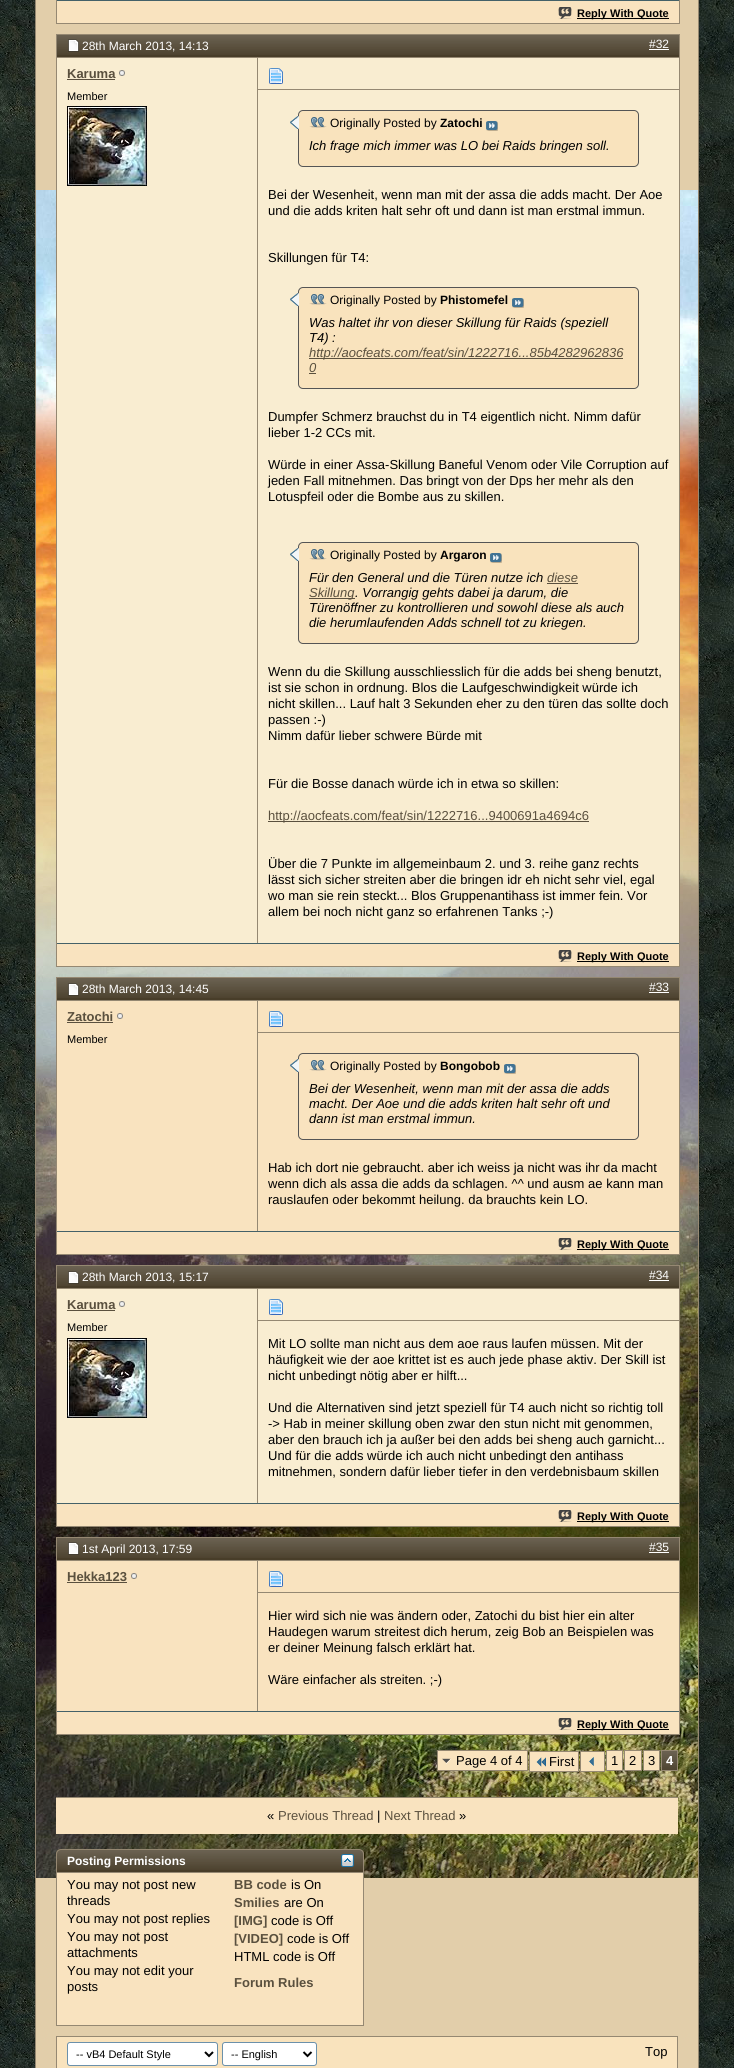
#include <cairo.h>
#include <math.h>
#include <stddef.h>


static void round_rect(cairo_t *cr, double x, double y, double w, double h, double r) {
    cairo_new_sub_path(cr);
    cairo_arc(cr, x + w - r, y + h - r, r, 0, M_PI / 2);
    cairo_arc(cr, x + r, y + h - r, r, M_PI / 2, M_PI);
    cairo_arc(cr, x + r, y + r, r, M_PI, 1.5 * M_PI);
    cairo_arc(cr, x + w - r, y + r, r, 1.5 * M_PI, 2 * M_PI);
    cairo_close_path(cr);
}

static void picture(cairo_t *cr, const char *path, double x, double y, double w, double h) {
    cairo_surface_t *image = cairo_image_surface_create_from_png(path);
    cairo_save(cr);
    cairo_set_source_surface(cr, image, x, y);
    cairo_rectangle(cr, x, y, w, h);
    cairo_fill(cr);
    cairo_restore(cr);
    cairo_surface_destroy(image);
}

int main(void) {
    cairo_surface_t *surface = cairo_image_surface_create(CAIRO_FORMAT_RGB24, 734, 2068);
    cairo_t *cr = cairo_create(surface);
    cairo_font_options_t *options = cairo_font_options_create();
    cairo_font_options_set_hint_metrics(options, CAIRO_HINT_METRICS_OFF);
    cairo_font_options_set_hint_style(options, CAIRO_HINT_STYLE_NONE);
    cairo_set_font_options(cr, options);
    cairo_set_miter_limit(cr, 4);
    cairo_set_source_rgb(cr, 1, 1, 1);
    cairo_paint(cr);
    picture(cr, "img1.png", 0, 0, 734, 2068);
    cairo_set_source_rgb(cr, 0.886, 0.808, 0.667);
    cairo_rectangle(cr, 36, 0, 662, 2068);
    cairo_fill(cr);
    picture(cr, "img2.png", 36, 190, 662, 1688);
    cairo_rectangle(cr, 35.5, -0.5, 663, 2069);
    cairo_set_source_rgb(cr, 0.584, 0.533, 0.447);
    cairo_set_line_width(cr, 1);
    cairo_stroke(cr);
    cairo_set_source_rgb(cr, 0.973, 0.89, 0.749);
    cairo_rectangle(cr, 57, 1, 622, 22);
    cairo_fill(cr);
    cairo_rectangle(cr, 56.5, -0.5, 623, 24);
    cairo_set_source_rgb(cr, 0.584, 0.533, 0.447);
    cairo_stroke(cr);
    cairo_set_source_rgb(cr, 0.267, 0.38, 0.408);
    cairo_rectangle(cr, 57, 0, 622, 1);
    cairo_fill(cr);
    picture(cr, "img3.png", 558, 7, 14, 12);
    cairo_set_source_rgb(cr, 0, 0, 0);
    cairo_rectangle(cr, 577, 18, 92, 1);
    cairo_fill(cr);
    cairo_select_font_face(cr, "Liberation Sans", CAIRO_FONT_SLANT_NORMAL, CAIRO_FONT_WEIGHT_BOLD);
    cairo_set_font_size(cr, 11);
    cairo_move_to(cr, 577, 17);
    cairo_show_text(cr, "Reply With Quote");
    cairo_set_source_rgb(cr, 0.973, 0.89, 0.749);
    cairo_rectangle(cr, 57, 944, 622, 22);
    cairo_fill(cr);
    cairo_rectangle(cr, 56.5, 34.5, 623, 932);
    cairo_set_source_rgb(cr, 0.584, 0.533, 0.447);
    cairo_stroke(cr);
    cairo_set_source_rgb(cr, 0.282, 0.239, 0.161);
    cairo_rectangle(cr, 57, 35, 622, 22);
    cairo_fill(cr);
    picture(cr, "img4.png", 57, 35, 622, 20);
    cairo_rectangle(cr, 56.5, 34.5, 623, 23);
    cairo_set_source_rgb(cr, 0.584, 0.533, 0.447);
    cairo_stroke(cr);
    picture(cr, "img5.png", 68, 39, 11, 13);
    cairo_select_font_face(cr, "Liberation Sans", CAIRO_FONT_SLANT_NORMAL, CAIRO_FONT_WEIGHT_NORMAL);
    cairo_set_font_size(cr, 12);
    cairo_set_source_rgb(cr, 1, 1, 1);
    cairo_move_to(cr, 82, 50);
    cairo_show_text(cr, "28th March 2013, 14:13");
    cairo_move_to(cr, 649, 48);
    cairo_show_text(cr, "#32");
    cairo_rectangle(cr, 649, 49, 20, 1);
    cairo_fill(cr);
    cairo_set_source_rgb(cr, 0.976, 0.929, 0.82);
    cairo_rectangle(cr, 57, 58, 622, 885);
    cairo_fill(cr);
    cairo_select_font_face(cr, "Liberation Sans", CAIRO_FONT_SLANT_NORMAL, CAIRO_FONT_WEIGHT_BOLD);
    cairo_set_font_size(cr, 13);
    cairo_set_source_rgb(cr, 0.353, 0.314, 0.243);
    cairo_move_to(cr, 67, 78);
    cairo_show_text(cr, "Karuma");
    cairo_rectangle(cr, 67, 79, 48, 1);
    cairo_fill(cr);
    picture(cr, "img6.png", 119, 70, 6, 6);
    cairo_select_font_face(cr, "Liberation Sans", CAIRO_FONT_SLANT_NORMAL, CAIRO_FONT_WEIGHT_NORMAL);
    cairo_set_font_size(cr, 11);
    cairo_set_source_rgb(cr, 0, 0, 0);
    cairo_move_to(cr, 67, 100);
    cairo_show_text(cr, "Member");
    picture(cr, "img7.png", 67, 106, 80, 80);
    cairo_set_source_rgb(cr, 0.584, 0.533, 0.447);
    cairo_rectangle(cr, 257, 58, 1, 885);
    cairo_fill(cr);
    cairo_rectangle(cr, 258, 89, 421, 1);
    cairo_fill(cr);
    picture(cr, "img8.png", 269, 68, 14, 16);
    cairo_set_source_rgb(cr, 0.973, 0.89, 0.741);
    round_rect(cr, 298.5, 110.5, 340, 56, 4.5);
    cairo_fill_preserve(cr);
    cairo_set_source_rgb(cr, 0.333, 0.333, 0.333);
    cairo_stroke(cr);
    picture(cr, "img9.png", 290, 116, 9, 13);
    picture(cr, "img10.png", 309, 117, 18, 11);
    cairo_set_font_size(cr, 12);
    cairo_set_source_rgb(cr, 0, 0, 0);
    cairo_move_to(cr, 330, 127);
    cairo_show_text(cr, "Originally Posted by");
    cairo_select_font_face(cr, "Liberation Sans", CAIRO_FONT_SLANT_NORMAL, CAIRO_FONT_WEIGHT_BOLD);
    cairo_move_to(cr, 440, 127);
    cairo_show_text(cr, "Zatochi");
    picture(cr, "img11.png", 486, 121, 12, 10);
    cairo_select_font_face(cr, "Liberation Sans", CAIRO_FONT_SLANT_ITALIC, CAIRO_FONT_WEIGHT_NORMAL);
    cairo_set_font_size(cr, 13);
    cairo_move_to(cr, 309, 150);
    cairo_show_text(cr, "Ich frage mich immer was LO bei Raids bringen soll.");
    cairo_select_font_face(cr, "Liberation Sans", CAIRO_FONT_SLANT_NORMAL, CAIRO_FONT_WEIGHT_NORMAL);
    cairo_move_to(cr, 268, 199);
    cairo_show_text(cr, "Bei der Wesenheit, wenn man mit der assa die adds macht. Der Aoe");
    cairo_move_to(cr, 268, 215);
    cairo_show_text(cr, "und die adds kriten halt sehr oft und dann ist man erstmal immun.");
    cairo_move_to(cr, 268, 262);
    cairo_show_text(cr, "Skillungen für T4:");
    cairo_set_source_rgb(cr, 0.973, 0.89, 0.741);
    round_rect(cr, 298.5, 287.5, 340, 101, 4.5);
    cairo_fill_preserve(cr);
    cairo_set_source_rgb(cr, 0.333, 0.333, 0.333);
    cairo_stroke(cr);
    picture(cr, "img9.png", 290, 293, 9, 13);
    picture(cr, "img10.png", 309, 294, 18, 11);
    cairo_set_font_size(cr, 12);
    cairo_set_source_rgb(cr, 0, 0, 0);
    cairo_move_to(cr, 330, 304);
    cairo_show_text(cr, "Originally Posted by");
    cairo_select_font_face(cr, "Liberation Sans", CAIRO_FONT_SLANT_NORMAL, CAIRO_FONT_WEIGHT_BOLD);
    cairo_move_to(cr, 440, 304);
    cairo_show_text(cr, "Phistomefel");
    picture(cr, "img11.png", 512, 298, 12, 10);
    cairo_select_font_face(cr, "Liberation Sans", CAIRO_FONT_SLANT_ITALIC, CAIRO_FONT_WEIGHT_NORMAL);
    cairo_set_font_size(cr, 13);
    cairo_move_to(cr, 309, 327);
    cairo_show_text(cr, "Was haltet ihr von dieser Skillung für Raids (speziell");
    cairo_move_to(cr, 309, 342);
    cairo_show_text(cr, "T4) :");
    cairo_set_source_rgb(cr, 0.353, 0.314, 0.243);
    cairo_rectangle(cr, 309, 358, 314, 1);
    cairo_fill(cr);
    cairo_move_to(cr, 309, 357);
    cairo_show_text(cr, "http://aocfeats.com/feat/sin/1222716...85b4282962836");
    cairo_move_to(cr, 309, 372);
    cairo_show_text(cr, "0");
    cairo_rectangle(cr, 309, 373, 7, 1);
    cairo_fill(cr);
    cairo_select_font_face(cr, "Liberation Sans", CAIRO_FONT_SLANT_NORMAL, CAIRO_FONT_WEIGHT_NORMAL);
    cairo_set_source_rgb(cr, 0, 0, 0);
    cairo_move_to(cr, 268, 421);
    cairo_show_text(cr, "Dumpfer Schmerz brauchst du in T4 eigentlich nicht. Nimm dafür");
    cairo_move_to(cr, 268, 437);
    cairo_show_text(cr, "lieber 1-2 CCs mit.");
    cairo_move_to(cr, 268, 469);
    cairo_show_text(cr, "Würde in einer Assa-Skillung Baneful Venom oder Vile Corruption auf");
    cairo_move_to(cr, 268, 485);
    cairo_show_text(cr, "jeden Fall mitnehmen. Das bringt von der Dps her mehr als den");
    cairo_move_to(cr, 268, 501);
    cairo_show_text(cr, "Lotuspfeil oder die Bombe aus zu skillen.");
    cairo_set_source_rgb(cr, 0.973, 0.89, 0.741);
    round_rect(cr, 298.5, 542.5, 340, 101, 4.5);
    cairo_fill_preserve(cr);
    cairo_set_source_rgb(cr, 0.333, 0.333, 0.333);
    cairo_stroke(cr);
    picture(cr, "img9.png", 290, 548, 9, 13);
    picture(cr, "img10.png", 309, 549, 18, 11);
    cairo_set_font_size(cr, 12);
    cairo_set_source_rgb(cr, 0, 0, 0);
    cairo_move_to(cr, 330, 559);
    cairo_show_text(cr, "Originally Posted by");
    cairo_select_font_face(cr, "Liberation Sans", CAIRO_FONT_SLANT_NORMAL, CAIRO_FONT_WEIGHT_BOLD);
    cairo_move_to(cr, 440, 559);
    cairo_show_text(cr, "Argaron");
    picture(cr, "img11.png", 490, 553, 12, 10);
    cairo_select_font_face(cr, "Liberation Sans", CAIRO_FONT_SLANT_ITALIC, CAIRO_FONT_WEIGHT_NORMAL);
    cairo_set_font_size(cr, 13);
    cairo_move_to(cr, 309, 582);
    cairo_show_text(cr, "Für den General und die Türen nutze ich");
    cairo_set_source_rgb(cr, 0.353, 0.314, 0.243);
    cairo_move_to(cr, 547, 582);
    cairo_show_text(cr, "diese");
    cairo_rectangle(cr, 547, 583, 31, 1);
    cairo_fill(cr);
    cairo_rectangle(cr, 309, 598, 46, 1);
    cairo_fill(cr);
    cairo_move_to(cr, 309, 597);
    cairo_show_text(cr, "Skillung");
    cairo_set_source_rgb(cr, 0, 0, 0);
    cairo_move_to(cr, 355, 597);
    cairo_show_text(cr, ". Vorrangig gehts dabei ja darum, die");
    cairo_move_to(cr, 309, 612);
    cairo_show_text(cr, "Türenöffner zu kontrollieren und sowohl diese als auch");
    cairo_move_to(cr, 309, 627);
    cairo_show_text(cr, "die herumlaufenden Adds schnell tot zu kriegen.");
    cairo_select_font_face(cr, "Liberation Sans", CAIRO_FONT_SLANT_NORMAL, CAIRO_FONT_WEIGHT_NORMAL);
    cairo_move_to(cr, 268, 676);
    cairo_show_text(cr, "Wenn du die Skillung ausschliesslich für die adds bei sheng benutzt,");
    cairo_move_to(cr, 268, 692);
    cairo_show_text(cr, "ist sie schon in ordnung. Blos die Laufgeschwindigkeit würde ich");
    cairo_move_to(cr, 268, 708);
    cairo_show_text(cr, "nicht skillen... Lauf halt 3 Sekunden eher zu den türen das sollte doch");
    cairo_move_to(cr, 268, 724);
    cairo_show_text(cr, "passen :-)");
    cairo_move_to(cr, 268, 740);
    cairo_show_text(cr, "Nimm dafür lieber schwere Bürde mit");
    cairo_move_to(cr, 268, 788);
    cairo_show_text(cr, "Für die Bosse danach würde ich in etwa so skillen:");
    cairo_set_source_rgb(cr, 0.353, 0.314, 0.243);
    cairo_rectangle(cr, 268, 821, 321, 1);
    cairo_fill(cr);
    cairo_move_to(cr, 268, 820);
    cairo_show_text(cr, "http://aocfeats.com/feat/sin/1222716...9400691a4694c6");
    cairo_set_source_rgb(cr, 0, 0, 0);
    cairo_move_to(cr, 268, 868);
    cairo_show_text(cr, "Über die 7 Punkte im allgemeinbaum 2. und 3. reihe ganz rechts");
    cairo_move_to(cr, 268, 884);
    cairo_show_text(cr, "lässt sich sicher streiten aber die bringen idr eh nicht sehr viel, egal");
    cairo_move_to(cr, 268, 900);
    cairo_show_text(cr, "wo man sie rein steckt... Blos Gruppenantihass ist immer fein. Vor");
    cairo_move_to(cr, 268, 916);
    cairo_show_text(cr, "allem bei noch nicht ganz so erfahrenen Tanks ;-)");
    cairo_set_source_rgb(cr, 0.267, 0.38, 0.408);
    cairo_rectangle(cr, 57, 943, 622, 1);
    cairo_fill(cr);
    picture(cr, "img3.png", 558, 950, 14, 12);
    cairo_set_source_rgb(cr, 0, 0, 0);
    cairo_rectangle(cr, 577, 961, 92, 1);
    cairo_fill(cr);
    cairo_select_font_face(cr, "Liberation Sans", CAIRO_FONT_SLANT_NORMAL, CAIRO_FONT_WEIGHT_BOLD);
    cairo_set_font_size(cr, 11);
    cairo_move_to(cr, 577, 960);
    cairo_show_text(cr, "Reply With Quote");
    cairo_set_source_rgb(cr, 0.973, 0.89, 0.749);
    cairo_rectangle(cr, 57, 1001, 622, 253);
    cairo_fill(cr);
    cairo_rectangle(cr, 56.5, 977.5, 623, 277);
    cairo_set_source_rgb(cr, 0.584, 0.533, 0.447);
    cairo_stroke(cr);
    cairo_set_source_rgb(cr, 0.282, 0.239, 0.161);
    cairo_rectangle(cr, 57, 978, 622, 22);
    cairo_fill(cr);
    picture(cr, "img4.png", 57, 978, 622, 20);
    cairo_rectangle(cr, 56.5, 977.5, 623, 23);
    cairo_set_source_rgb(cr, 0.584, 0.533, 0.447);
    cairo_stroke(cr);
    picture(cr, "img12.png", 68, 983, 11, 13);
    cairo_select_font_face(cr, "Liberation Sans", CAIRO_FONT_SLANT_NORMAL, CAIRO_FONT_WEIGHT_NORMAL);
    cairo_set_font_size(cr, 12);
    cairo_set_source_rgb(cr, 1, 1, 1);
    cairo_move_to(cr, 82, 993);
    cairo_show_text(cr, "28th March 2013, 14:45");
    cairo_move_to(cr, 649, 991);
    cairo_show_text(cr, "#33");
    cairo_rectangle(cr, 649, 992, 20, 1);
    cairo_fill(cr);
    cairo_select_font_face(cr, "Liberation Sans", CAIRO_FONT_SLANT_NORMAL, CAIRO_FONT_WEIGHT_BOLD);
    cairo_set_font_size(cr, 13);
    cairo_set_source_rgb(cr, 0.353, 0.314, 0.243);
    cairo_move_to(cr, 67, 1021);
    cairo_show_text(cr, "Zatochi");
    cairo_rectangle(cr, 67, 1022, 46, 1);
    cairo_fill(cr);
    picture(cr, "img13.png", 117, 1013, 6, 6);
    cairo_select_font_face(cr, "Liberation Sans", CAIRO_FONT_SLANT_NORMAL, CAIRO_FONT_WEIGHT_NORMAL);
    cairo_set_font_size(cr, 11);
    cairo_set_source_rgb(cr, 0, 0, 0);
    cairo_move_to(cr, 67, 1043);
    cairo_show_text(cr, "Member");
    cairo_set_source_rgb(cr, 0.584, 0.533, 0.447);
    cairo_rectangle(cr, 257, 1001, 1, 230);
    cairo_fill(cr);
    cairo_rectangle(cr, 258, 1032, 421, 1);
    cairo_fill(cr);
    picture(cr, "img14.png", 269, 1011, 14, 16);
    round_rect(cr, 298.5, 1053.5, 340, 86, 4.5);
    cairo_set_source_rgb(cr, 0.333, 0.333, 0.333);
    cairo_stroke(cr);
    picture(cr, "img15.png", 290, 1059, 9, 13);
    picture(cr, "img10.png", 309, 1060, 18, 11);
    cairo_set_font_size(cr, 12);
    cairo_set_source_rgb(cr, 0, 0, 0);
    cairo_move_to(cr, 330, 1070);
    cairo_show_text(cr, "Originally Posted by");
    cairo_select_font_face(cr, "Liberation Sans", CAIRO_FONT_SLANT_NORMAL, CAIRO_FONT_WEIGHT_BOLD);
    cairo_move_to(cr, 440, 1070);
    cairo_show_text(cr, "Bongobob");
    picture(cr, "img11.png", 504, 1064, 12, 10);
    cairo_select_font_face(cr, "Liberation Sans", CAIRO_FONT_SLANT_ITALIC, CAIRO_FONT_WEIGHT_NORMAL);
    cairo_set_font_size(cr, 13);
    cairo_move_to(cr, 309, 1093);
    cairo_show_text(cr, "Bei der Wesenheit, wenn man mit der assa die adds");
    cairo_move_to(cr, 309, 1108);
    cairo_show_text(cr, "macht. Der Aoe und die adds kriten halt sehr oft und");
    cairo_move_to(cr, 309, 1123);
    cairo_show_text(cr, "dann ist man erstmal immun.");
    cairo_select_font_face(cr, "Liberation Sans", CAIRO_FONT_SLANT_NORMAL, CAIRO_FONT_WEIGHT_NORMAL);
    cairo_move_to(cr, 268, 1172);
    cairo_show_text(cr, "Hab ich dort nie gebraucht. aber ich weiss ja nicht was ihr da macht");
    cairo_move_to(cr, 268, 1188);
    cairo_show_text(cr, "wenn dich als assa die adds da schlagen. ^^ und ausm ae kann man");
    cairo_move_to(cr, 268, 1204);
    cairo_show_text(cr, "rauslaufen oder bekommt heilung. da brauchts kein LO.");
    cairo_set_source_rgb(cr, 0.267, 0.38, 0.408);
    cairo_rectangle(cr, 57, 1231, 622, 1);
    cairo_fill(cr);
    picture(cr, "img3.png", 558, 1238, 14, 12);
    cairo_set_source_rgb(cr, 0, 0, 0);
    cairo_rectangle(cr, 577, 1249, 92, 1);
    cairo_fill(cr);
    cairo_select_font_face(cr, "Liberation Sans", CAIRO_FONT_SLANT_NORMAL, CAIRO_FONT_WEIGHT_BOLD);
    cairo_set_font_size(cr, 11);
    cairo_move_to(cr, 577, 1248);
    cairo_show_text(cr, "Reply With Quote");
    cairo_set_source_rgb(cr, 0.973, 0.89, 0.749);
    cairo_rectangle(cr, 57, 1504, 622, 22);
    cairo_fill(cr);
    cairo_rectangle(cr, 56.5, 1265.5, 623, 261);
    cairo_set_source_rgb(cr, 0.584, 0.533, 0.447);
    cairo_stroke(cr);
    cairo_set_source_rgb(cr, 0.282, 0.239, 0.161);
    cairo_rectangle(cr, 57, 1266, 622, 22);
    cairo_fill(cr);
    picture(cr, "img4.png", 57, 1266, 622, 20);
    cairo_rectangle(cr, 56.5, 1265.5, 623, 23);
    cairo_set_source_rgb(cr, 0.584, 0.533, 0.447);
    cairo_stroke(cr);
    picture(cr, "img12.png", 68, 1271, 11, 13);
    cairo_select_font_face(cr, "Liberation Sans", CAIRO_FONT_SLANT_NORMAL, CAIRO_FONT_WEIGHT_NORMAL);
    cairo_set_font_size(cr, 12);
    cairo_set_source_rgb(cr, 1, 1, 1);
    cairo_move_to(cr, 82, 1281);
    cairo_show_text(cr, "28th March 2013, 15:17");
    cairo_move_to(cr, 649, 1279);
    cairo_show_text(cr, "#34");
    cairo_rectangle(cr, 649, 1280, 20, 1);
    cairo_fill(cr);
    cairo_set_source_rgb(cr, 0.976, 0.929, 0.82);
    cairo_rectangle(cr, 57, 1289, 622, 214);
    cairo_fill(cr);
    cairo_select_font_face(cr, "Liberation Sans", CAIRO_FONT_SLANT_NORMAL, CAIRO_FONT_WEIGHT_BOLD);
    cairo_set_font_size(cr, 13);
    cairo_set_source_rgb(cr, 0.353, 0.314, 0.243);
    cairo_move_to(cr, 67, 1309);
    cairo_show_text(cr, "Karuma");
    cairo_rectangle(cr, 67, 1310, 48, 1);
    cairo_fill(cr);
    picture(cr, "img6.png", 119, 1301, 6, 6);
    cairo_select_font_face(cr, "Liberation Sans", CAIRO_FONT_SLANT_NORMAL, CAIRO_FONT_WEIGHT_NORMAL);
    cairo_set_font_size(cr, 11);
    cairo_set_source_rgb(cr, 0, 0, 0);
    cairo_move_to(cr, 67, 1331);
    cairo_show_text(cr, "Member");
    picture(cr, "img7.png", 67, 1338, 80, 80);
    cairo_set_source_rgb(cr, 0.584, 0.533, 0.447);
    cairo_rectangle(cr, 257, 1289, 1, 214);
    cairo_fill(cr);
    cairo_rectangle(cr, 258, 1320, 421, 1);
    cairo_fill(cr);
    picture(cr, "img8.png", 269, 1299, 14, 16);
    cairo_set_font_size(cr, 13);
    cairo_set_source_rgb(cr, 0, 0, 0);
    cairo_move_to(cr, 268, 1348);
    cairo_show_text(cr, "Mit LO sollte man nicht aus dem aoe raus laufen müssen. Mit der");
    cairo_move_to(cr, 268, 1364);
    cairo_show_text(cr, "häufigkeit wie der aoe krittet ist es auch jede phase aktiv. Der Skill ist");
    cairo_move_to(cr, 268, 1380);
    cairo_show_text(cr, "nicht unbedingt nötig aber er hilft...");
    cairo_move_to(cr, 268, 1412);
    cairo_show_text(cr, "Und die Alternativen sind jetzt speziell für T4 auch nicht so richtig toll");
    cairo_move_to(cr, 268, 1428);
    cairo_show_text(cr, "-> Hab in meiner skillung oben zwar den stun nicht mit genommen,");
    cairo_move_to(cr, 268, 1444);
    cairo_show_text(cr, "aber den brauch ich ja außer bei den adds bei sheng auch garnicht...");
    cairo_move_to(cr, 268, 1460);
    cairo_show_text(cr, "Und für die adds würde ich auch nicht unbedingt den antihass");
    cairo_move_to(cr, 268, 1476);
    cairo_show_text(cr, "mitnehmen, sondern dafür lieber tiefer in den verdebnisbaum skillen");
    cairo_set_source_rgb(cr, 0.267, 0.38, 0.408);
    cairo_rectangle(cr, 57, 1503, 622, 1);
    cairo_fill(cr);
    picture(cr, "img3.png", 558, 1510, 14, 12);
    cairo_set_source_rgb(cr, 0, 0, 0);
    cairo_rectangle(cr, 577, 1521, 92, 1);
    cairo_fill(cr);
    cairo_select_font_face(cr, "Liberation Sans", CAIRO_FONT_SLANT_NORMAL, CAIRO_FONT_WEIGHT_BOLD);
    cairo_set_font_size(cr, 11);
    cairo_move_to(cr, 577, 1520);
    cairo_show_text(cr, "Reply With Quote");
    cairo_set_source_rgb(cr, 0.973, 0.89, 0.749);
    cairo_rectangle(cr, 57, 1561, 622, 173);
    cairo_fill(cr);
    cairo_rectangle(cr, 56.5, 1537.5, 623, 197);
    cairo_set_source_rgb(cr, 0.584, 0.533, 0.447);
    cairo_stroke(cr);
    cairo_set_source_rgb(cr, 0.282, 0.239, 0.161);
    cairo_rectangle(cr, 57, 1538, 622, 22);
    cairo_fill(cr);
    picture(cr, "img4.png", 57, 1538, 622, 20);
    cairo_rectangle(cr, 56.5, 1537.5, 623, 23);
    cairo_set_source_rgb(cr, 0.584, 0.533, 0.447);
    cairo_stroke(cr);
    picture(cr, "img5.png", 68, 1542, 11, 13);
    cairo_select_font_face(cr, "Liberation Sans", CAIRO_FONT_SLANT_NORMAL, CAIRO_FONT_WEIGHT_NORMAL);
    cairo_set_font_size(cr, 12);
    cairo_set_source_rgb(cr, 1, 1, 1);
    cairo_move_to(cr, 82, 1553);
    cairo_show_text(cr, "1st April 2013, 17:59");
    cairo_move_to(cr, 649, 1551);
    cairo_show_text(cr, "#35");
    cairo_rectangle(cr, 649, 1552, 20, 1);
    cairo_fill(cr);
    cairo_select_font_face(cr, "Liberation Sans", CAIRO_FONT_SLANT_NORMAL, CAIRO_FONT_WEIGHT_BOLD);
    cairo_set_font_size(cr, 13);
    cairo_set_source_rgb(cr, 0.353, 0.314, 0.243);
    cairo_move_to(cr, 67, 1581);
    cairo_show_text(cr, "Hekka123");
    cairo_rectangle(cr, 67, 1582, 60, 1);
    cairo_fill(cr);
    picture(cr, "img13.png", 131, 1573, 6, 6);
    cairo_set_source_rgb(cr, 0.584, 0.533, 0.447);
    cairo_rectangle(cr, 257, 1561, 1, 150);
    cairo_fill(cr);
    cairo_rectangle(cr, 258, 1592, 421, 1);
    cairo_fill(cr);
    picture(cr, "img14.png", 269, 1571, 14, 16);
    cairo_select_font_face(cr, "Liberation Sans", CAIRO_FONT_SLANT_NORMAL, CAIRO_FONT_WEIGHT_NORMAL);
    cairo_set_source_rgb(cr, 0, 0, 0);
    cairo_move_to(cr, 268, 1620);
    cairo_show_text(cr, "Hier wird sich nie was ändern oder, Zatochi du bist hier ein alter");
    cairo_move_to(cr, 268, 1636);
    cairo_show_text(cr, "Haudegen warum streitest dich herum, zeig Bob an Beispielen was");
    cairo_move_to(cr, 268, 1652);
    cairo_show_text(cr, "er deiner Meinung falsch erklärt hat.");
    cairo_move_to(cr, 268, 1684);
    cairo_show_text(cr, "Wäre einfacher als streiten. ;-)");
    cairo_set_source_rgb(cr, 0.267, 0.38, 0.408);
    cairo_rectangle(cr, 57, 1711, 622, 1);
    cairo_fill(cr);
    picture(cr, "img3.png", 558, 1718, 14, 12);
    cairo_set_source_rgb(cr, 0, 0, 0);
    cairo_rectangle(cr, 577, 1729, 92, 1);
    cairo_fill(cr);
    cairo_select_font_face(cr, "Liberation Sans", CAIRO_FONT_SLANT_NORMAL, CAIRO_FONT_WEIGHT_BOLD);
    cairo_set_font_size(cr, 11);
    cairo_move_to(cr, 577, 1728);
    cairo_show_text(cr, "Reply With Quote");
    cairo_set_source_rgb(cr, 0.973, 0.89, 0.745);
    cairo_rectangle(cr, 438, 1751, 89, 19);
    cairo_fill(cr);
    picture(cr, "img16.png", 442, 1758, 9, 6);
    cairo_rectangle(cr, 437.5, 1750.5, 90, 20);
    cairo_set_source_rgb(cr, 0.584, 0.533, 0.447);
    cairo_stroke(cr);
    cairo_select_font_face(cr, "Liberation Sans", CAIRO_FONT_SLANT_NORMAL, CAIRO_FONT_WEIGHT_NORMAL);
    cairo_set_font_size(cr, 13);
    cairo_set_source_rgb(cr, 0, 0, 0);
    cairo_move_to(cr, 456, 1765);
    cairo_show_text(cr, "Page 4 of 4");
    cairo_set_source_rgb(cr, 0.973, 0.89, 0.745);
    cairo_rectangle(cr, 530, 1752, 48, 19);
    cairo_fill(cr);
    picture(cr, "img17.png", 536, 1757, 10, 10);
    cairo_set_source_rgb(cr, 0, 0, 0);
    cairo_move_to(cr, 549, 1766);
    cairo_show_text(cr, "First");
    cairo_set_source_rgb(cr, 0.584, 0.533, 0.447);
    cairo_rectangle(cr, 529, 1751, 50, 1);
    cairo_fill(cr);
    cairo_rectangle(cr, 529, 1771, 20, 1);
    cairo_fill(cr);
    cairo_rectangle(cr, 529, 1751, 1, 21);
    cairo_fill(cr);
    cairo_rectangle(cr, 578, 1751, 1, 21);
    cairo_fill(cr);
    cairo_rectangle(cr, 549, 1771, 30, 1);
    cairo_fill(cr);
    cairo_set_source_rgb(cr, 0.973, 0.89, 0.745);
    cairo_rectangle(cr, 580.5, 1751.5, 24, 20);
    cairo_fill_preserve(cr);
    cairo_set_source_rgb(cr, 0.584, 0.533, 0.447);
    cairo_stroke(cr);
    picture(cr, "img18.png", 589, 1757, 5, 9);
    cairo_set_source_rgb(cr, 0.973, 0.89, 0.745);
    cairo_rectangle(cr, 606.5, 1750.5, 16, 20);
    cairo_fill_preserve(cr);
    cairo_set_source_rgb(cr, 0.584, 0.533, 0.447);
    cairo_stroke(cr);
    cairo_set_source_rgb(cr, 0, 0, 0);
    cairo_move_to(cr, 611, 1765);
    cairo_show_text(cr, "1");
    cairo_set_source_rgb(cr, 0.973, 0.89, 0.745);
    cairo_rectangle(cr, 624.5, 1750.5, 17, 20);
    cairo_fill_preserve(cr);
    cairo_set_source_rgb(cr, 0.584, 0.533, 0.447);
    cairo_stroke(cr);
    cairo_set_source_rgb(cr, 0, 0, 0);
    cairo_move_to(cr, 629, 1765);
    cairo_show_text(cr, "2");
    cairo_set_source_rgb(cr, 0.973, 0.89, 0.745);
    cairo_rectangle(cr, 643.5, 1750.5, 16, 20);
    cairo_fill_preserve(cr);
    cairo_set_source_rgb(cr, 0.584, 0.533, 0.447);
    cairo_stroke(cr);
    cairo_set_source_rgb(cr, 0, 0, 0);
    cairo_move_to(cr, 648, 1765);
    cairo_show_text(cr, "3");
    cairo_set_source_rgb(cr, 0.282, 0.239, 0.161);
    cairo_rectangle(cr, 662, 1751, 15, 19);
    cairo_fill(cr);
    picture(cr, "img19.png", 662, 1751, 15, 19);
    cairo_rectangle(cr, 661.5, 1750.5, 16, 20);
    cairo_set_source_rgb(cr, 0.584, 0.533, 0.447);
    cairo_stroke(cr);
    cairo_select_font_face(cr, "Liberation Sans", CAIRO_FONT_SLANT_NORMAL, CAIRO_FONT_WEIGHT_BOLD);
    cairo_set_source_rgb(cr, 1, 1, 1);
    cairo_move_to(cr, 666, 1765);
    cairo_show_text(cr, "4");
    cairo_set_source_rgb(cr, 0.973, 0.89, 0.749);
    cairo_rectangle(cr, 56, 1798, 622, 36);
    cairo_fill(cr);
    cairo_set_source_rgb(cr, 0.584, 0.533, 0.447);
    cairo_rectangle(cr, 56, 1797, 622, 1);
    cairo_fill(cr);
    cairo_select_font_face(cr, "Liberation Sans", CAIRO_FONT_SLANT_NORMAL, CAIRO_FONT_WEIGHT_NORMAL);
    cairo_set_source_rgb(cr, 0, 0, 0);
    cairo_move_to(cr, 267, 1820);
    cairo_show_text(cr, "«");
    cairo_set_source_rgb(cr, 0.353, 0.314, 0.243);
    cairo_move_to(cr, 278, 1820);
    cairo_show_text(cr, "Previous Thread");
    cairo_set_source_rgb(cr, 0, 0, 0);
    cairo_move_to(cr, 377, 1820);
    cairo_show_text(cr, "|");
    cairo_set_source_rgb(cr, 0.353, 0.314, 0.243);
    cairo_move_to(cr, 384, 1820);
    cairo_show_text(cr, "Next Thread");
    cairo_set_source_rgb(cr, 0, 0, 0);
    cairo_move_to(cr, 459, 1820);
    cairo_show_text(cr, "»");
    cairo_set_source_rgb(cr, 0.282, 0.239, 0.161);
    cairo_new_path(cr);
    cairo_move_to(cr, 61, 1849);
    cairo_line_to(cr, 359, 1849);
    cairo_curve_to(cr, 362, 1849, 364, 1851, 364, 1854);
    cairo_line_to(cr, 364, 1873);
    cairo_line_to(cr, 56, 1873);
    cairo_line_to(cr, 56, 1854);
    cairo_curve_to(cr, 56, 1851, 58, 1849, 61, 1849);
    cairo_close_path(cr);
    cairo_fill(cr);
    picture(cr, "img20.png", 56, 1850, 308, 20);
    cairo_new_path(cr);
    cairo_move_to(cr, 61, 1849.5);
    cairo_line_to(cr, 359, 1849.5);
    cairo_curve_to(cr, 361.5, 1849.5, 363.5, 1851.5, 363.5, 1854);
    cairo_line_to(cr, 363.5, 1872.5);
    cairo_line_to(cr, 56.5, 1872.5);
    cairo_line_to(cr, 56.5, 1854);
    cairo_curve_to(cr, 56.5, 1851.5, 58.5, 1849.5, 61, 1849.5);
    cairo_close_path(cr);
    cairo_set_source_rgb(cr, 0.584, 0.533, 0.447);
    cairo_stroke(cr);
    cairo_select_font_face(cr, "Liberation Sans", CAIRO_FONT_SLANT_NORMAL, CAIRO_FONT_WEIGHT_BOLD);
    cairo_set_font_size(cr, 12);
    cairo_set_source_rgb(cr, 1, 1, 1);
    cairo_move_to(cr, 67, 1865);
    cairo_show_text(cr, "Posting Permissions");
    picture(cr, "img21.png", 341, 1854, 13, 13);
    cairo_set_source_rgb(cr, 0.973, 0.89, 0.749);
    cairo_rectangle(cr, 57, 1873, 306, 152);
    cairo_fill(cr);
    cairo_set_source_rgb(cr, 0.584, 0.533, 0.447);
    cairo_rectangle(cr, 363, 1873, 1, 153);
    cairo_fill(cr);
    cairo_rectangle(cr, 56, 2025, 308, 1);
    cairo_fill(cr);
    cairo_rectangle(cr, 56, 1873, 1, 153);
    cairo_fill(cr);
    cairo_select_font_face(cr, "Liberation Sans", CAIRO_FONT_SLANT_NORMAL, CAIRO_FONT_WEIGHT_NORMAL);
    cairo_set_font_size(cr, 13);
    cairo_set_source_rgb(cr, 0, 0, 0);
    cairo_move_to(cr, 67, 1889);
    cairo_show_text(cr, "You may not post new");
    cairo_move_to(cr, 67, 1905);
    cairo_show_text(cr, "threads");
    cairo_move_to(cr, 67, 1923);
    cairo_show_text(cr, "You may not post replies");
    cairo_move_to(cr, 67, 1941);
    cairo_show_text(cr, "You may not post");
    cairo_move_to(cr, 67, 1957);
    cairo_show_text(cr, "attachments");
    cairo_move_to(cr, 67, 1975);
    cairo_show_text(cr, "You may not edit your");
    cairo_move_to(cr, 67, 1991);
    cairo_show_text(cr, "posts");
    cairo_select_font_face(cr, "Liberation Sans", CAIRO_FONT_SLANT_NORMAL, CAIRO_FONT_WEIGHT_BOLD);
    cairo_set_source_rgb(cr, 0.353, 0.314, 0.243);
    cairo_move_to(cr, 234, 1889);
    cairo_show_text(cr, "BB code");
    cairo_select_font_face(cr, "Liberation Sans", CAIRO_FONT_SLANT_NORMAL, CAIRO_FONT_WEIGHT_NORMAL);
    cairo_set_source_rgb(cr, 0, 0, 0);
    cairo_move_to(cr, 291, 1889);
    cairo_show_text(cr, "is On");
    cairo_select_font_face(cr, "Liberation Sans", CAIRO_FONT_SLANT_NORMAL, CAIRO_FONT_WEIGHT_BOLD);
    cairo_set_source_rgb(cr, 0.353, 0.314, 0.243);
    cairo_move_to(cr, 234, 1907);
    cairo_show_text(cr, "Smilies");
    cairo_select_font_face(cr, "Liberation Sans", CAIRO_FONT_SLANT_NORMAL, CAIRO_FONT_WEIGHT_NORMAL);
    cairo_set_source_rgb(cr, 0, 0, 0);
    cairo_move_to(cr, 284, 1907);
    cairo_show_text(cr, "are On");
    cairo_select_font_face(cr, "Liberation Sans", CAIRO_FONT_SLANT_NORMAL, CAIRO_FONT_WEIGHT_BOLD);
    cairo_set_source_rgb(cr, 0.353, 0.314, 0.243);
    cairo_move_to(cr, 234, 1925);
    cairo_show_text(cr, "[IMG]");
    cairo_select_font_face(cr, "Liberation Sans", CAIRO_FONT_SLANT_NORMAL, CAIRO_FONT_WEIGHT_NORMAL);
    cairo_set_source_rgb(cr, 0, 0, 0);
    cairo_move_to(cr, 271, 1925);
    cairo_show_text(cr, "code is Off");
    cairo_select_font_face(cr, "Liberation Sans", CAIRO_FONT_SLANT_NORMAL, CAIRO_FONT_WEIGHT_BOLD);
    cairo_set_source_rgb(cr, 0.353, 0.314, 0.243);
    cairo_move_to(cr, 234, 1943);
    cairo_show_text(cr, "[VIDEO]");
    cairo_select_font_face(cr, "Liberation Sans", CAIRO_FONT_SLANT_NORMAL, CAIRO_FONT_WEIGHT_NORMAL);
    cairo_set_source_rgb(cr, 0, 0, 0);
    cairo_move_to(cr, 287, 1943);
    cairo_show_text(cr, "code is Off");
    cairo_move_to(cr, 234, 1961);
    cairo_show_text(cr, "HTML code is Off");
    cairo_select_font_face(cr, "Liberation Sans", CAIRO_FONT_SLANT_NORMAL, CAIRO_FONT_WEIGHT_BOLD);
    cairo_set_source_rgb(cr, 0.353, 0.314, 0.243);
    cairo_move_to(cr, 234, 1987);
    cairo_show_text(cr, "Forum Rules");
    cairo_set_source_rgb(cr, 0.973, 0.89, 0.741);
    cairo_rectangle(cr, 56.5, 2036.5, 621, 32);
    cairo_fill_preserve(cr);
    cairo_set_source_rgb(cr, 0.584, 0.533, 0.447);
    cairo_stroke(cr);
    cairo_set_source_rgb(cr, 1, 1, 1);
    round_rect(cr, 67.5, 2042.5, 150, 23, 2.5);
    cairo_fill_preserve(cr);
    cairo_set_source_rgb(cr, 0.42, 0.569, 0.671);
    cairo_stroke(cr);
    cairo_new_path(cr);
    cairo_move_to(cr, 205, 2052);
    cairo_line_to(cr, 209, 2056);
    cairo_line_to(cr, 213, 2052);
    cairo_set_source_rgb(cr, 0, 0, 0);
    cairo_set_line_width(cr, 2);
    cairo_stroke(cr);
    cairo_select_font_face(cr, "Liberation Sans", CAIRO_FONT_SLANT_NORMAL, CAIRO_FONT_WEIGHT_NORMAL);
    cairo_set_font_size(cr, 11);
    cairo_move_to(cr, 76, 2058);
    cairo_show_text(cr, "-- vB4 Default Style");
    cairo_set_source_rgb(cr, 1, 1, 1);
    round_rect(cr, 222.5, 2042.5, 94, 23, 2.5);
    cairo_fill_preserve(cr);
    cairo_set_source_rgb(cr, 0.42, 0.569, 0.671);
    cairo_set_line_width(cr, 1);
    cairo_stroke(cr);
    cairo_new_path(cr);
    cairo_move_to(cr, 303.5, 2052);
    cairo_line_to(cr, 307.5, 2056);
    cairo_line_to(cr, 311.5, 2052);
    cairo_set_source_rgb(cr, 0, 0, 0);
    cairo_set_line_width(cr, 2);
    cairo_stroke(cr);
    cairo_move_to(cr, 231, 2058);
    cairo_show_text(cr, "-- English");
    cairo_set_font_size(cr, 13);
    cairo_move_to(cr, 645, 2056);
    cairo_show_text(cr, "Top");
    cairo_surface_write_to_png(surface, "page.png");
    cairo_font_options_destroy(options);
    cairo_destroy(cr);
    cairo_surface_destroy(surface);
    return 0;
}
